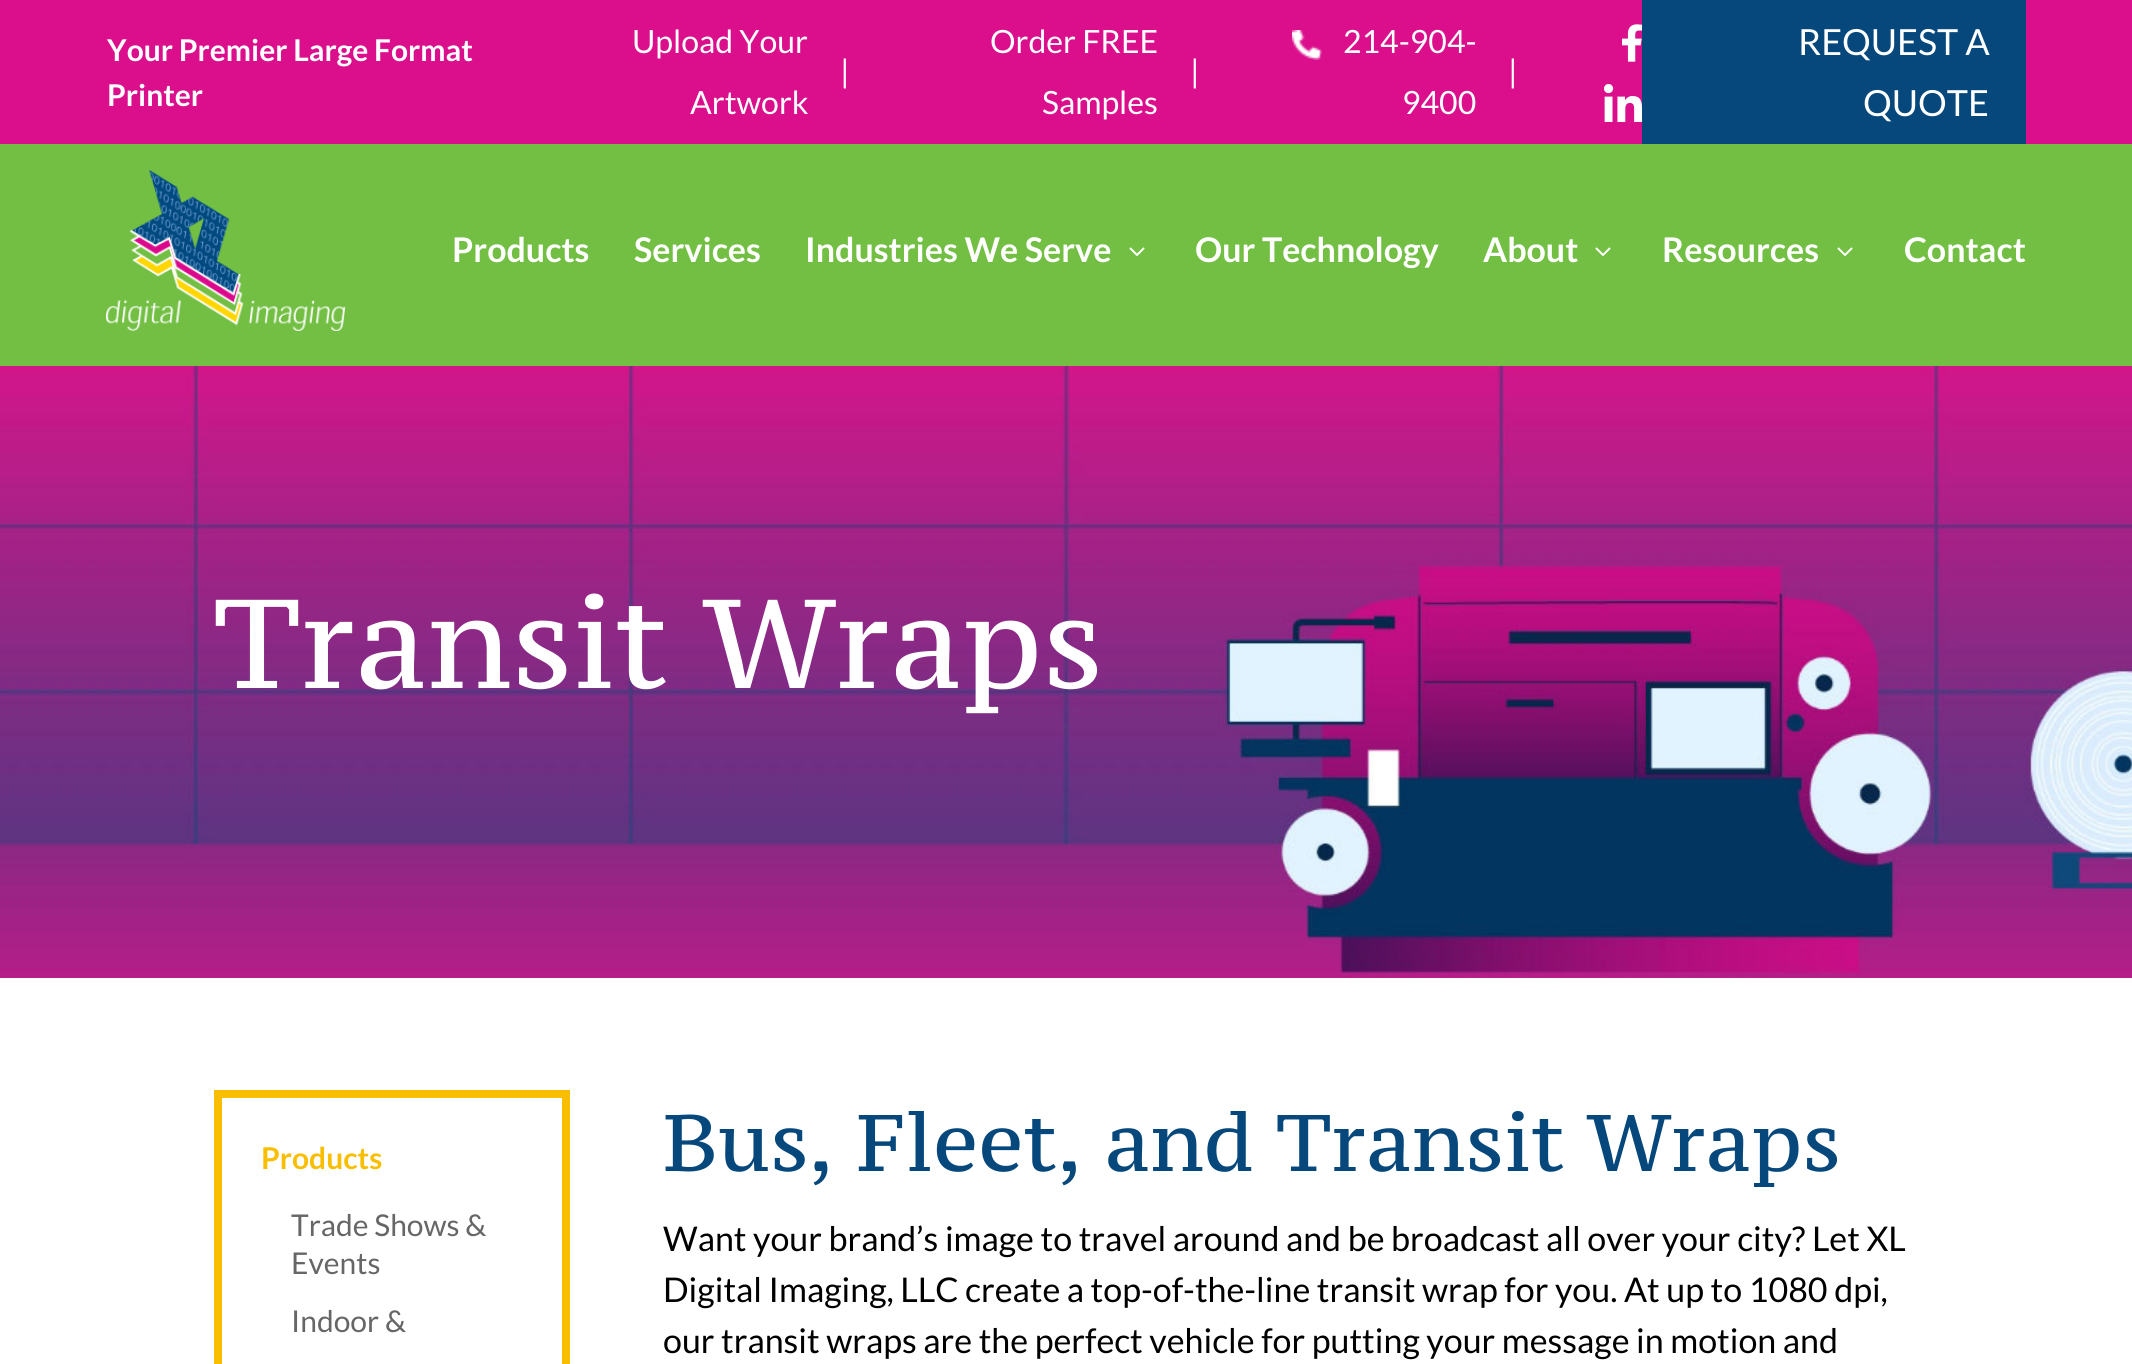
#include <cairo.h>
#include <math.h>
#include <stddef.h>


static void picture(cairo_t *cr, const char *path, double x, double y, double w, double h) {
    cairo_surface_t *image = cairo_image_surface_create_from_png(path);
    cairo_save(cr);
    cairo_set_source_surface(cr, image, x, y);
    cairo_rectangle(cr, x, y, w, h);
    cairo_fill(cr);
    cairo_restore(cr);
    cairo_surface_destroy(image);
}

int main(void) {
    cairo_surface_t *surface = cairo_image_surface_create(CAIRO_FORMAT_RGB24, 2132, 1364);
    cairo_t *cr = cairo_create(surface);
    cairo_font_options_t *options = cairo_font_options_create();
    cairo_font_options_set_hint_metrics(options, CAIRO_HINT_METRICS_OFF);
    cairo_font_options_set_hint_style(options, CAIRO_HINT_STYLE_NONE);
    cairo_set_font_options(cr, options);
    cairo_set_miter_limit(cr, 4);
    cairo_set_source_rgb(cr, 1, 1, 1);
    cairo_paint(cr);
    cairo_set_source_rgb(cr, 0.859, 0.055, 0.549);
    cairo_rectangle(cr, 0, 0, 2132, 144);
    cairo_fill(cr);
    cairo_select_font_face(cr, "Lato", CAIRO_FONT_SLANT_NORMAL, CAIRO_FONT_WEIGHT_BOLD);
    cairo_set_font_size(cr, 30);
    cairo_set_source_rgb(cr, 1, 1, 1);
    cairo_move_to(cr, 107, 61);
    cairo_show_text(cr, "Your Premier Large Format");
    cairo_move_to(cr, 107, 106);
    cairo_show_text(cr, "Printer");
    cairo_select_font_face(cr, "Lato", CAIRO_FONT_SLANT_NORMAL, CAIRO_FONT_WEIGHT_NORMAL);
    cairo_set_font_size(cr, 32);
    cairo_move_to(cr, 632, 53);
    cairo_show_text(cr, "Upload Your");
    cairo_move_to(cr, 690, 114);
    cairo_show_text(cr, "Artwork");
    cairo_move_to(cr, 840, 83);
    cairo_show_text(cr, "|");
    cairo_move_to(cr, 990, 53);
    cairo_show_text(cr, "Order FREE");
    cairo_move_to(cr, 1042, 114);
    cairo_show_text(cr, "Samples");
    cairo_move_to(cr, 1190, 83);
    cairo_show_text(cr, "|");
    picture(cr, "img1.png", 1292, 30, 30, 30);
    cairo_move_to(cr, 1343, 53);
    cairo_show_text(cr, "214-904-");
    cairo_move_to(cr, 1402, 114);
    cairo_show_text(cr, "9400");
    cairo_move_to(cr, 1508, 83);
    cairo_show_text(cr, "|");
    picture(cr, "img2.png", 1622, 24, 20, 38);
    picture(cr, "img3.png", 1604, 84, 38, 38);
    cairo_set_source_rgb(cr, 0.024, 0.282, 0.486);
    cairo_rectangle(cr, 1642, 0, 384, 144);
    cairo_fill(cr);
    cairo_set_font_size(cr, 36);
    cairo_set_source_rgb(cr, 1, 1, 1);
    cairo_move_to(cr, 1798, 55);
    cairo_show_text(cr, "REQUEST A");
    cairo_move_to(cr, 1863, 116);
    cairo_show_text(cr, "QUOTE");
    cairo_set_source_rgb(cr, 0.447, 0.749, 0.263);
    cairo_rectangle(cr, 0, 144, 2132, 222);
    cairo_fill(cr);
    picture(cr, "img4.png", 106, 170, 240, 161);
    cairo_select_font_face(cr, "Lato", CAIRO_FONT_SLANT_NORMAL, CAIRO_FONT_WEIGHT_BOLD);
    cairo_set_font_size(cr, 34);
    cairo_set_source_rgb(cr, 1, 1, 1);
    cairo_move_to(cr, 452, 262);
    cairo_show_text(cr, "Products");
    cairo_move_to(cr, 634, 262);
    cairo_show_text(cr, "Services");
    cairo_move_to(cr, 805, 262);
    cairo_show_text(cr, "Industries We Serve");
    picture(cr, "img5.png", 1129, 247, 16, 9);
    cairo_move_to(cr, 1195, 262);
    cairo_show_text(cr, "Our Technology");
    cairo_move_to(cr, 1483, 262);
    cairo_show_text(cr, "About");
    picture(cr, "img5.png", 1595, 247, 16, 9);
    cairo_move_to(cr, 1662, 262);
    cairo_show_text(cr, "Resources");
    picture(cr, "img5.png", 1837, 247, 16, 9);
    cairo_move_to(cr, 1904, 262);
    cairo_show_text(cr, "Contact");
    picture(cr, "img6.png", 0, 366, 2132, 612);
    cairo_select_font_face(cr, "PT Serif Caption", CAIRO_FONT_SLANT_NORMAL, CAIRO_FONT_WEIGHT_NORMAL);
    cairo_set_font_size(cr, 126);
    cairo_move_to(cr, 213, 688);
    cairo_show_text(cr, "Transit Wraps");
    cairo_rectangle(cr, 218, 1094, 348, 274);
    cairo_set_source_rgb(cr, 0.976, 0.745, 0);
    cairo_set_line_width(cr, 8);
    cairo_stroke(cr);
    cairo_select_font_face(cr, "Lato", CAIRO_FONT_SLANT_NORMAL, CAIRO_FONT_WEIGHT_BOLD);
    cairo_set_font_size(cr, 30);
    cairo_move_to(cr, 261, 1169);
    cairo_show_text(cr, "Products");
    cairo_select_font_face(cr, "Lato", CAIRO_FONT_SLANT_NORMAL, CAIRO_FONT_WEIGHT_NORMAL);
    cairo_set_source_rgb(cr, 0.4, 0.4, 0.4);
    cairo_move_to(cr, 291, 1236);
    cairo_show_text(cr, "Trade Shows &");
    cairo_move_to(cr, 291, 1274);
    cairo_show_text(cr, "Events");
    cairo_move_to(cr, 291, 1332);
    cairo_show_text(cr, "Indoor &");
    cairo_select_font_face(cr, "PT Serif Caption", CAIRO_FONT_SLANT_NORMAL, CAIRO_FONT_WEIGHT_NORMAL);
    cairo_set_font_size(cr, 80);
    cairo_set_source_rgb(cr, 0.024, 0.282, 0.486);
    cairo_move_to(cr, 663, 1171);
    cairo_show_text(cr, "Bus, Fleet, and Transit Wraps");
    cairo_select_font_face(cr, "Lato", CAIRO_FONT_SLANT_NORMAL, CAIRO_FONT_WEIGHT_NORMAL);
    cairo_set_font_size(cr, 34);
    cairo_set_source_rgb(cr, 0, 0, 0);
    cairo_move_to(cr, 663, 1251);
    cairo_show_text(cr, "Want your brand’s image to travel around and be broadcast all over your city? Let XL");
    cairo_move_to(cr, 663, 1302);
    cairo_show_text(cr, "Digital Imaging, LLC create a top-of-the-line transit wrap for you. At up to 1080 dpi,");
    cairo_move_to(cr, 663, 1353);
    cairo_show_text(cr, "our transit wraps are the perfect vehicle for putting your message in motion and");
    cairo_surface_write_to_png(surface, "page.png");
    cairo_font_options_destroy(options);
    cairo_destroy(cr);
    cairo_surface_destroy(surface);
    return 0;
}
